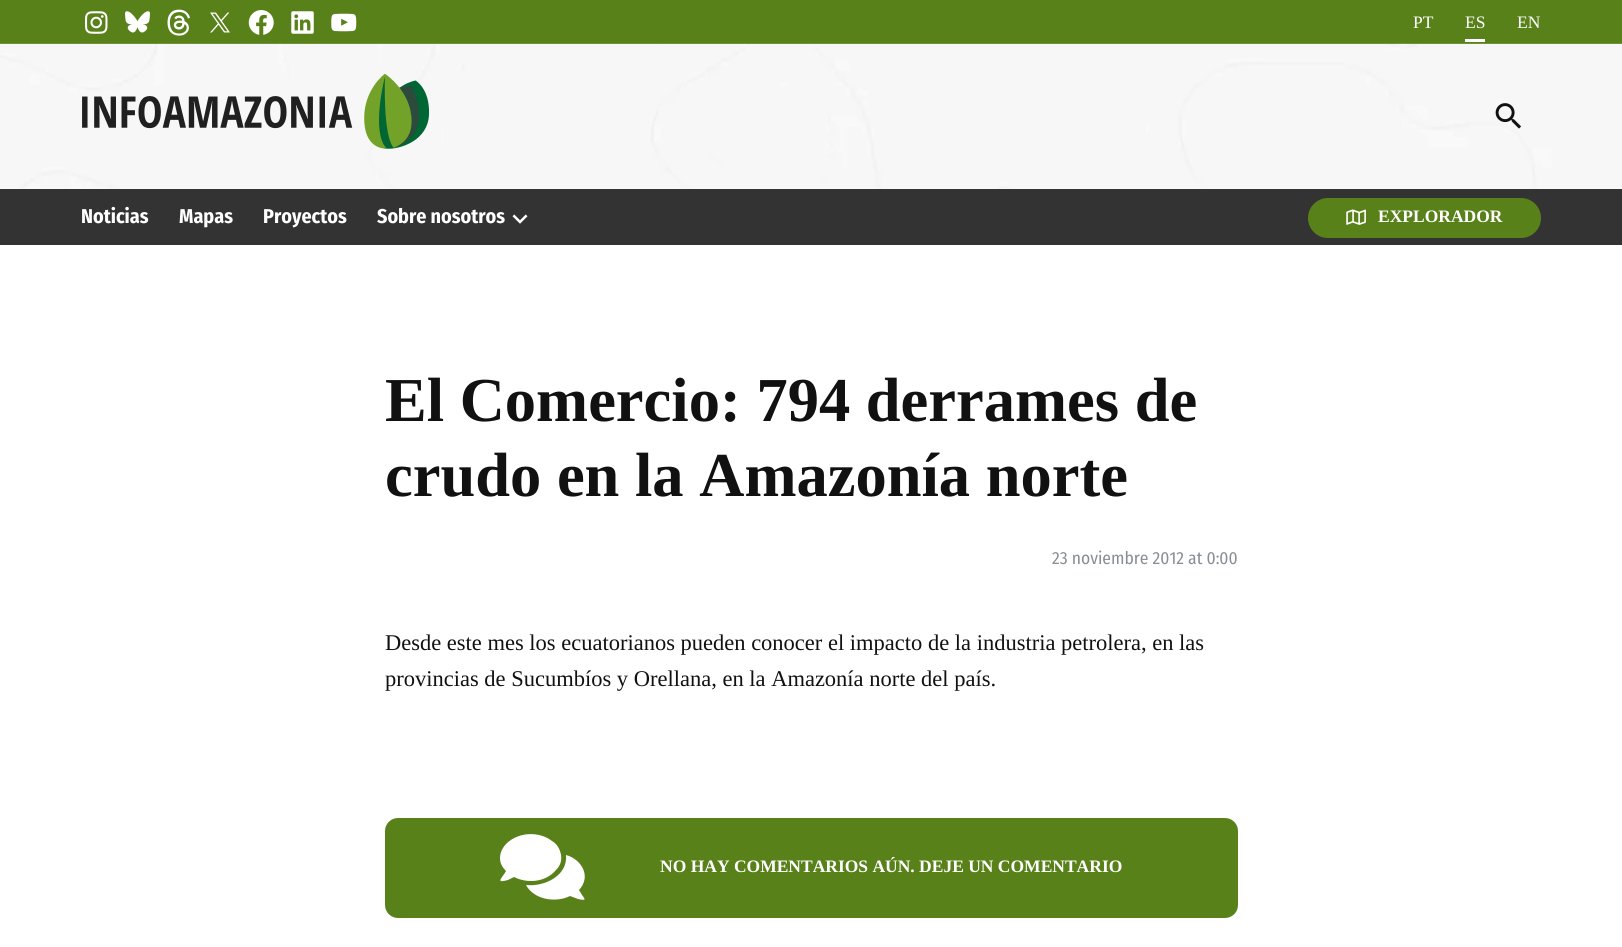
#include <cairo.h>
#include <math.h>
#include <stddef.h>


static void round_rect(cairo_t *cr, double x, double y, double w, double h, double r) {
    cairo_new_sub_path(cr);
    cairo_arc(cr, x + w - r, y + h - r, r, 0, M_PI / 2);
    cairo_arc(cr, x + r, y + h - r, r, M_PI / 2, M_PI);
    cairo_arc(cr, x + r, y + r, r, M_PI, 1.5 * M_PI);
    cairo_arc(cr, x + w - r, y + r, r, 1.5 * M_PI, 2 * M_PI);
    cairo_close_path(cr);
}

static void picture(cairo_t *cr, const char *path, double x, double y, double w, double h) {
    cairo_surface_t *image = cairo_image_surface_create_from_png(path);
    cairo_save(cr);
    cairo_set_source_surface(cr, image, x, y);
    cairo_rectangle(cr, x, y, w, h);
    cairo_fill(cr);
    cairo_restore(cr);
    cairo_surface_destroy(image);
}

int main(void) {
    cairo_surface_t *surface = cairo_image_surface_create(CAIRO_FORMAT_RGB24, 1622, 947);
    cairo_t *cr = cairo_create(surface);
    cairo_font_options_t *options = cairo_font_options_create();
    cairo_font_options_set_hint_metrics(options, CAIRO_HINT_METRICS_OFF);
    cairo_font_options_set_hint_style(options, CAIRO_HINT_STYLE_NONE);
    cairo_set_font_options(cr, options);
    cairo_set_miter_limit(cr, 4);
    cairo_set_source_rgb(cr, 1, 1, 1);
    cairo_paint(cr);
    cairo_set_source_rgb(cr, 0.349, 0.506, 0.102);
    cairo_rectangle(cr, 0, 0, 1622, 44);
    cairo_fill(cr);
    picture(cr, "img1.png", 85, 11, 23, 23);
    picture(cr, "img2.png", 125, 11, 25, 22);
    picture(cr, "img3.png", 167, 9, 23, 27);
    picture(cr, "img4.png", 210, 12, 20, 21);
    picture(cr, "img5.png", 248, 10, 26, 25);
    picture(cr, "img6.png", 291, 11, 23, 23);
    picture(cr, "img7.png", 331, 13, 26, 19);
    cairo_select_font_face(cr, "Liberation Serif", CAIRO_FONT_SLANT_NORMAL, CAIRO_FONT_WEIGHT_NORMAL);
    cairo_set_font_size(cr, 17.5);
    cairo_set_source_rgb(cr, 1, 1, 1);
    cairo_move_to(cr, 1413, 28);
    cairo_show_text(cr, "PT");
    cairo_rectangle(cr, 1465, 39, 20, 3);
    cairo_fill(cr);
    cairo_move_to(cr, 1465, 28);
    cairo_show_text(cr, "ES");
    cairo_move_to(cr, 1517, 28);
    cairo_show_text(cr, "EN");
    picture(cr, "img8.png", 0, 43, 1622, 146);
    picture(cr, "img9.png", 82, 74, 347, 75);
    picture(cr, "img10.png", 1495, 103, 26, 26);
    cairo_set_source_rgb(cr, 0.2, 0.2, 0.2);
    cairo_rectangle(cr, 0, 189, 1622, 56);
    cairo_fill(cr);
    cairo_select_font_face(cr, "Fira Sans Condensed", CAIRO_FONT_SLANT_NORMAL, CAIRO_FONT_WEIGHT_BOLD);
    cairo_set_font_size(cr, 20);
    cairo_set_source_rgb(cr, 1, 1, 1);
    cairo_move_to(cr, 81, 223);
    cairo_show_text(cr, "Noticias");
    cairo_move_to(cr, 179, 223);
    cairo_show_text(cr, "Mapas");
    cairo_move_to(cr, 263, 223);
    cairo_show_text(cr, "Proyectos");
    cairo_move_to(cr, 377, 223);
    cairo_show_text(cr, "Sobre nosotros");
    picture(cr, "img11.png", 512, 214, 16, 10);
    cairo_set_source_rgb(cr, 0.349, 0.506, 0.102);
    round_rect(cr, 1308, 198, 233, 40, 20);
    cairo_fill(cr);
    picture(cr, "img12.png", 1346, 209, 20, 16);
    cairo_select_font_face(cr, "Liberation Serif", CAIRO_FONT_SLANT_NORMAL, CAIRO_FONT_WEIGHT_BOLD);
    cairo_set_font_size(cr, 17.5);
    cairo_set_source_rgb(cr, 1, 1, 1);
    cairo_move_to(cr, 1378, 222);
    cairo_show_text(cr, "EXPLORADOR");
    cairo_set_font_size(cr, 62.5);
    cairo_set_source_rgb(cr, 0.067, 0.067, 0.067);
    cairo_move_to(cr, 385, 421);
    cairo_show_text(cr, "El Comercio: 794 derrames de");
    cairo_move_to(cr, 385, 496);
    cairo_show_text(cr, "crudo en la Amazonía norte");
    cairo_select_font_face(cr, "Fira Sans Condensed", CAIRO_FONT_SLANT_NORMAL, CAIRO_FONT_WEIGHT_NORMAL);
    cairo_set_font_size(cr, 17.5);
    cairo_set_source_rgb(cr, 0.533, 0.557, 0.58);
    cairo_move_to(cr, 1052, 564);
    cairo_show_text(cr, "23 noviembre 2012 at 0:00");
    cairo_select_font_face(cr, "Liberation Serif", CAIRO_FONT_SLANT_NORMAL, CAIRO_FONT_WEIGHT_NORMAL);
    cairo_set_font_size(cr, 22.5);
    cairo_set_source_rgb(cr, 0.067, 0.067, 0.067);
    cairo_move_to(cr, 385, 650);
    cairo_show_text(cr, "Desde este mes los ecuatorianos pueden conocer el impacto de la industria petrolera, en las");
    cairo_move_to(cr, 385, 686);
    cairo_show_text(cr, "provincias de Sucumbíos y Orellana, en la Amazonía norte del país.");
    cairo_set_source_rgb(cr, 0.349, 0.506, 0.102);
    round_rect(cr, 385, 818, 853, 100, 13);
    cairo_fill(cr);
    cairo_set_source_rgb(cr, 1, 1, 1);
    cairo_new_path(cr);
    cairo_move_to(cr, 552, 841);
    cairo_curve_to(cr, 557, 844, 560, 849, 561, 855);
    cairo_curve_to(cr, 562, 861, 560, 866, 556, 870);
    cairo_curve_to(cr, 546, 882, 528, 884, 514, 877);
    cairo_line_to(cr, 508, 880);
    cairo_curve_to(cr, 494, 884, 503, 877, 506, 871);
    cairo_curve_to(cr, 502, 867, 500, 863, 500, 858);
    cairo_curve_to(cr, 500, 852, 503, 847, 507, 843);
    cairo_curve_to(cr, 519, 832, 539, 831, 552, 841);
    cairo_close_path(cr);
    cairo_move_to(cr, 579, 890);
    cairo_line_to(cr, 582, 895);
    cairo_curve_to(cr, 585, 899, 587, 901, 578, 899);
    cairo_line_to(cr, 570, 896);
    cairo_curve_to(cr, 556, 903, 534, 900, 526, 885);
    cairo_curve_to(cr, 544, 887, 568, 876, 566, 855);
    cairo_curve_to(cr, 581, 859, 592, 876, 579, 890);
    cairo_close_path(cr);
    cairo_fill(cr);
    cairo_select_font_face(cr, "Liberation Serif", CAIRO_FONT_SLANT_NORMAL, CAIRO_FONT_WEIGHT_BOLD);
    cairo_set_font_size(cr, 17.5);
    cairo_move_to(cr, 660, 872);
    cairo_show_text(cr, "NO HAY COMENTARIOS AÚN. DEJE UN COMENTARIO");
    cairo_surface_write_to_png(surface, "page.png");
    cairo_font_options_destroy(options);
    cairo_destroy(cr);
    cairo_surface_destroy(surface);
    return 0;
}
